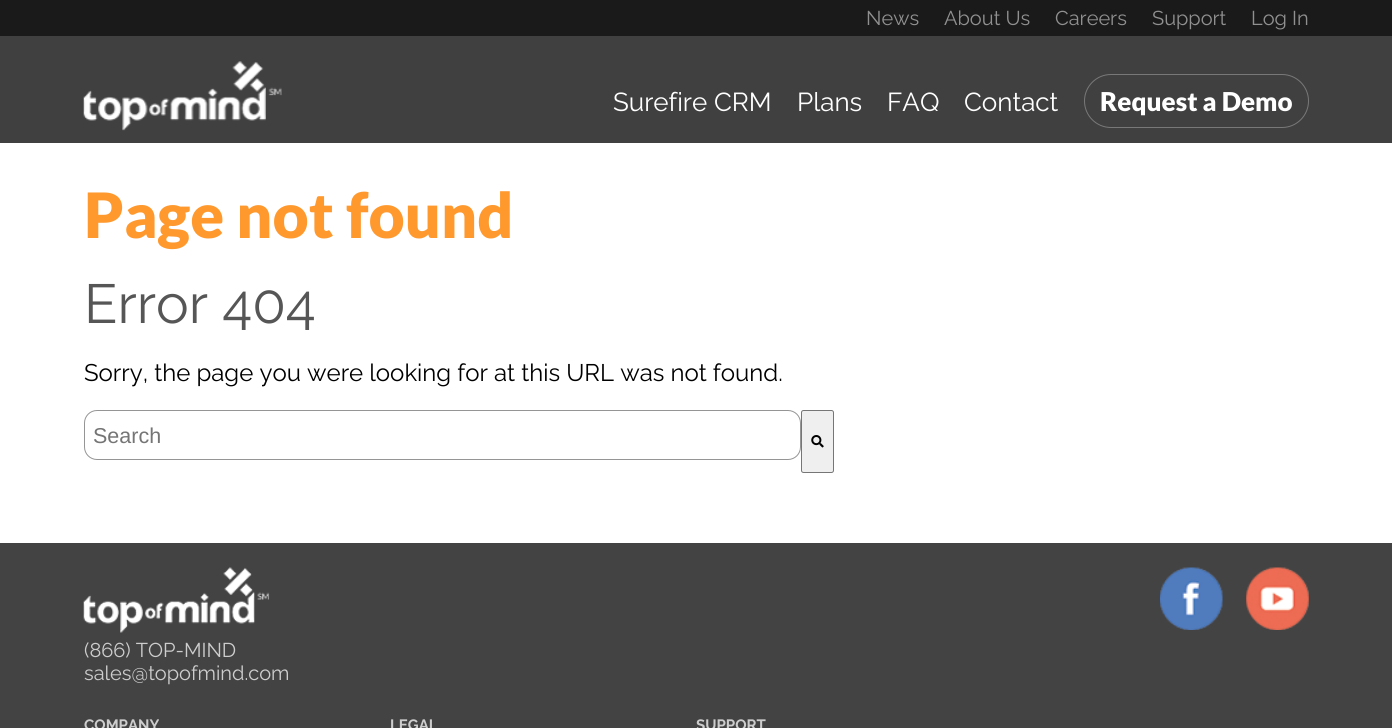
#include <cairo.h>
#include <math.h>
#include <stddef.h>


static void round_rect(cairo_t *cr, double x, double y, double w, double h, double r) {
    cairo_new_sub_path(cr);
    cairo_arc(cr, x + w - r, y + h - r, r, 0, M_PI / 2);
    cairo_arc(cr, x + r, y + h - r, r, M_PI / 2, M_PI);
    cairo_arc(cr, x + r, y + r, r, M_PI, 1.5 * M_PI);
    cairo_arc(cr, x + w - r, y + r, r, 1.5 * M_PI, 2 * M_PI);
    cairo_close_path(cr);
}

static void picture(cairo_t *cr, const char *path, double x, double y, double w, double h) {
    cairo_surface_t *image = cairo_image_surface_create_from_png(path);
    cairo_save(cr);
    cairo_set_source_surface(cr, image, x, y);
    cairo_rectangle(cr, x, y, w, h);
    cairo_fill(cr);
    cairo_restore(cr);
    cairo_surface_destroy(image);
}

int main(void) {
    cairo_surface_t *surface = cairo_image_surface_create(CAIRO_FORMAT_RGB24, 1392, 728);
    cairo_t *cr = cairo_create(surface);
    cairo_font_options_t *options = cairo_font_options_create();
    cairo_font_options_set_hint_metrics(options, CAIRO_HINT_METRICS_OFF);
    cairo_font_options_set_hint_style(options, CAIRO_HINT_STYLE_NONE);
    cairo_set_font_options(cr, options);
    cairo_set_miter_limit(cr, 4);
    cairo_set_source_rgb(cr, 1, 1, 1);
    cairo_paint(cr);
    cairo_set_source_rgb(cr, 0.102, 0.102, 0.102);
    cairo_rectangle(cr, 0, 0, 1392, 36);
    cairo_fill(cr);
    cairo_select_font_face(cr, "Raleway", CAIRO_FONT_SLANT_NORMAL, CAIRO_FONT_WEIGHT_NORMAL);
    cairo_set_font_size(cr, 20);
    cairo_set_source_rgb(cr, 0.565, 0.565, 0.565);
    cairo_move_to(cr, 866, 25);
    cairo_show_text(cr, "News");
    cairo_move_to(cr, 944, 25);
    cairo_show_text(cr, "About Us");
    cairo_move_to(cr, 1055, 25);
    cairo_show_text(cr, "Careers");
    cairo_move_to(cr, 1152, 25);
    cairo_show_text(cr, "Support");
    cairo_move_to(cr, 1251, 25);
    cairo_show_text(cr, "Log In");
    cairo_set_source_rgb(cr, 0.251, 0.251, 0.251);
    cairo_rectangle(cr, 0, 36, 1392, 107);
    cairo_fill(cr);
    picture(cr, "img1.png", 83, 61, 199, 70);
    cairo_set_font_size(cr, 26);
    cairo_set_source_rgb(cr, 1, 1, 1);
    cairo_move_to(cr, 613, 111);
    cairo_show_text(cr, "Surefire CRM");
    cairo_move_to(cr, 797, 111);
    cairo_show_text(cr, "Plans");
    cairo_move_to(cr, 887, 111);
    cairo_show_text(cr, "FAQ");
    cairo_move_to(cr, 964, 111);
    cairo_show_text(cr, "Contact");
    round_rect(cr, 1084.5, 74.5, 224, 53, 26.5);
    cairo_set_source_rgb(cr, 0.471, 0.471, 0.471);
    cairo_set_line_width(cr, 1);
    cairo_stroke(cr);
    cairo_select_font_face(cr, "Lato Black", CAIRO_FONT_SLANT_NORMAL, CAIRO_FONT_WEIGHT_NORMAL);
    cairo_set_source_rgb(cr, 1, 1, 1);
    cairo_move_to(cr, 1100, 111);
    cairo_show_text(cr, "Request a Demo");
    cairo_set_font_size(cr, 62.5);
    cairo_set_source_rgb(cr, 1, 0.6, 0.18);
    cairo_move_to(cr, 84, 238);
    cairo_show_text(cr, "Page not found");
    cairo_select_font_face(cr, "Raleway", CAIRO_FONT_SLANT_NORMAL, CAIRO_FONT_WEIGHT_NORMAL);
    cairo_set_font_size(cr, 55);
    cairo_set_source_rgb(cr, 0.337, 0.337, 0.337);
    cairo_move_to(cr, 84, 323);
    cairo_show_text(cr, "Error 404");
    cairo_set_font_size(cr, 24);
    cairo_set_source_rgb(cr, 0, 0, 0);
    cairo_move_to(cr, 84, 381);
    cairo_show_text(cr, "Sorry, the page you were looking for at this URL was not found.");
    round_rect(cr, 84.5, 410.5, 716, 49, 12.5);
    cairo_set_source_rgb(cr, 0.584, 0.584, 0.584);
    cairo_stroke(cr);
    cairo_select_font_face(cr, "Liberation Sans", CAIRO_FONT_SLANT_NORMAL, CAIRO_FONT_WEIGHT_NORMAL);
    cairo_set_font_size(cr, 21.5);
    cairo_set_source_rgb(cr, 0.459, 0.459, 0.459);
    cairo_move_to(cr, 93, 443);
    cairo_show_text(cr, "Search");
    cairo_set_source_rgb(cr, 0.937, 0.937, 0.937);
    round_rect(cr, 801.5, 410.5, 32, 62, 2);
    cairo_fill_preserve(cr);
    cairo_set_source_rgb(cr, 0.463, 0.463, 0.463);
    cairo_stroke(cr);
    picture(cr, "img2.png", 811, 435, 13, 13);
    cairo_set_source_rgb(cr, 0.263, 0.263, 0.263);
    cairo_rectangle(cr, 0, 543, 1392, 185);
    cairo_fill(cr);
    picture(cr, "img3.png", 1160, 567, 63, 63);
    picture(cr, "img4.png", 1246, 567, 63, 63);
    picture(cr, "img5.png", 83, 567, 187, 66);
    cairo_select_font_face(cr, "Raleway", CAIRO_FONT_SLANT_NORMAL, CAIRO_FONT_WEIGHT_NORMAL);
    cairo_set_font_size(cr, 20);
    cairo_set_source_rgb(cr, 0.804, 0.804, 0.804);
    cairo_move_to(cr, 84, 657);
    cairo_show_text(cr, "(866) TOP-MIND");
    cairo_move_to(cr, 84, 680);
    cairo_show_text(cr, "sales@topofmind.com");
    cairo_select_font_face(cr, "Raleway", CAIRO_FONT_SLANT_NORMAL, CAIRO_FONT_WEIGHT_BOLD);
    cairo_set_font_size(cr, 15);
    cairo_move_to(cr, 84, 730);
    cairo_show_text(cr, "COMPANY");
    cairo_move_to(cr, 390, 730);
    cairo_show_text(cr, "LEGAL");
    cairo_move_to(cr, 696, 730);
    cairo_show_text(cr, "SUPPORT");
    cairo_surface_write_to_png(surface, "page.png");
    cairo_font_options_destroy(options);
    cairo_destroy(cr);
    cairo_surface_destroy(surface);
    return 0;
}
